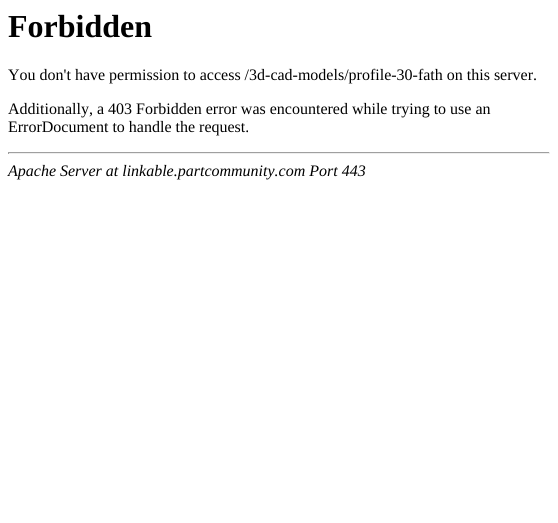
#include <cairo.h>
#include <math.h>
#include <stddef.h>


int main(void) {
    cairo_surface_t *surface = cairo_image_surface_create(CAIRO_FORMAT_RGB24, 558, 523);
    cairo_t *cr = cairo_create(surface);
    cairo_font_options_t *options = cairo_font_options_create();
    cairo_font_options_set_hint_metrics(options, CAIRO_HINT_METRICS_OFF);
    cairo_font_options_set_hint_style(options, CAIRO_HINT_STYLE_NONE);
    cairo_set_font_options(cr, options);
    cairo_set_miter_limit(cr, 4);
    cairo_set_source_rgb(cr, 1, 1, 1);
    cairo_paint(cr);
    cairo_select_font_face(cr, "Liberation Serif", CAIRO_FONT_SLANT_NORMAL, CAIRO_FONT_WEIGHT_BOLD);
    cairo_set_font_size(cr, 32);
    cairo_set_source_rgb(cr, 0, 0, 0);
    cairo_move_to(cr, 8, 37);
    cairo_show_text(cr, "Forbidden");
    cairo_select_font_face(cr, "Liberation Serif", CAIRO_FONT_SLANT_NORMAL, CAIRO_FONT_WEIGHT_NORMAL);
    cairo_set_font_size(cr, 16);
    cairo_move_to(cr, 8, 80);
    cairo_show_text(cr, "You don't have permission to access /3d-cad-models/profile-30-fath on this server.");
    cairo_move_to(cr, 8, 114);
    cairo_show_text(cr, "Additionally, a 403 Forbidden error was encountered while trying to use an");
    cairo_move_to(cr, 8, 132);
    cairo_show_text(cr, "ErrorDocument to handle the request.");
    cairo_set_source_rgb(cr, 0.624, 0.624, 0.624);
    cairo_rectangle(cr, 8, 152, 542, 1);
    cairo_fill(cr);
    cairo_set_source_rgb(cr, 0.933, 0.933, 0.933);
    cairo_rectangle(cr, 549, 152, 1, 2);
    cairo_fill(cr);
    cairo_rectangle(cr, 8, 153, 542, 1);
    cairo_fill(cr);
    cairo_set_source_rgb(cr, 0.624, 0.624, 0.624);
    cairo_rectangle(cr, 8, 152, 1, 2);
    cairo_fill(cr);
    cairo_select_font_face(cr, "Liberation Serif", CAIRO_FONT_SLANT_ITALIC, CAIRO_FONT_WEIGHT_NORMAL);
    cairo_set_source_rgb(cr, 0, 0, 0);
    cairo_move_to(cr, 8, 176);
    cairo_show_text(cr, "Apache Server at linkable.partcommunity.com Port 443");
    cairo_surface_write_to_png(surface, "page.png");
    cairo_font_options_destroy(options);
    cairo_destroy(cr);
    cairo_surface_destroy(surface);
    return 0;
}
